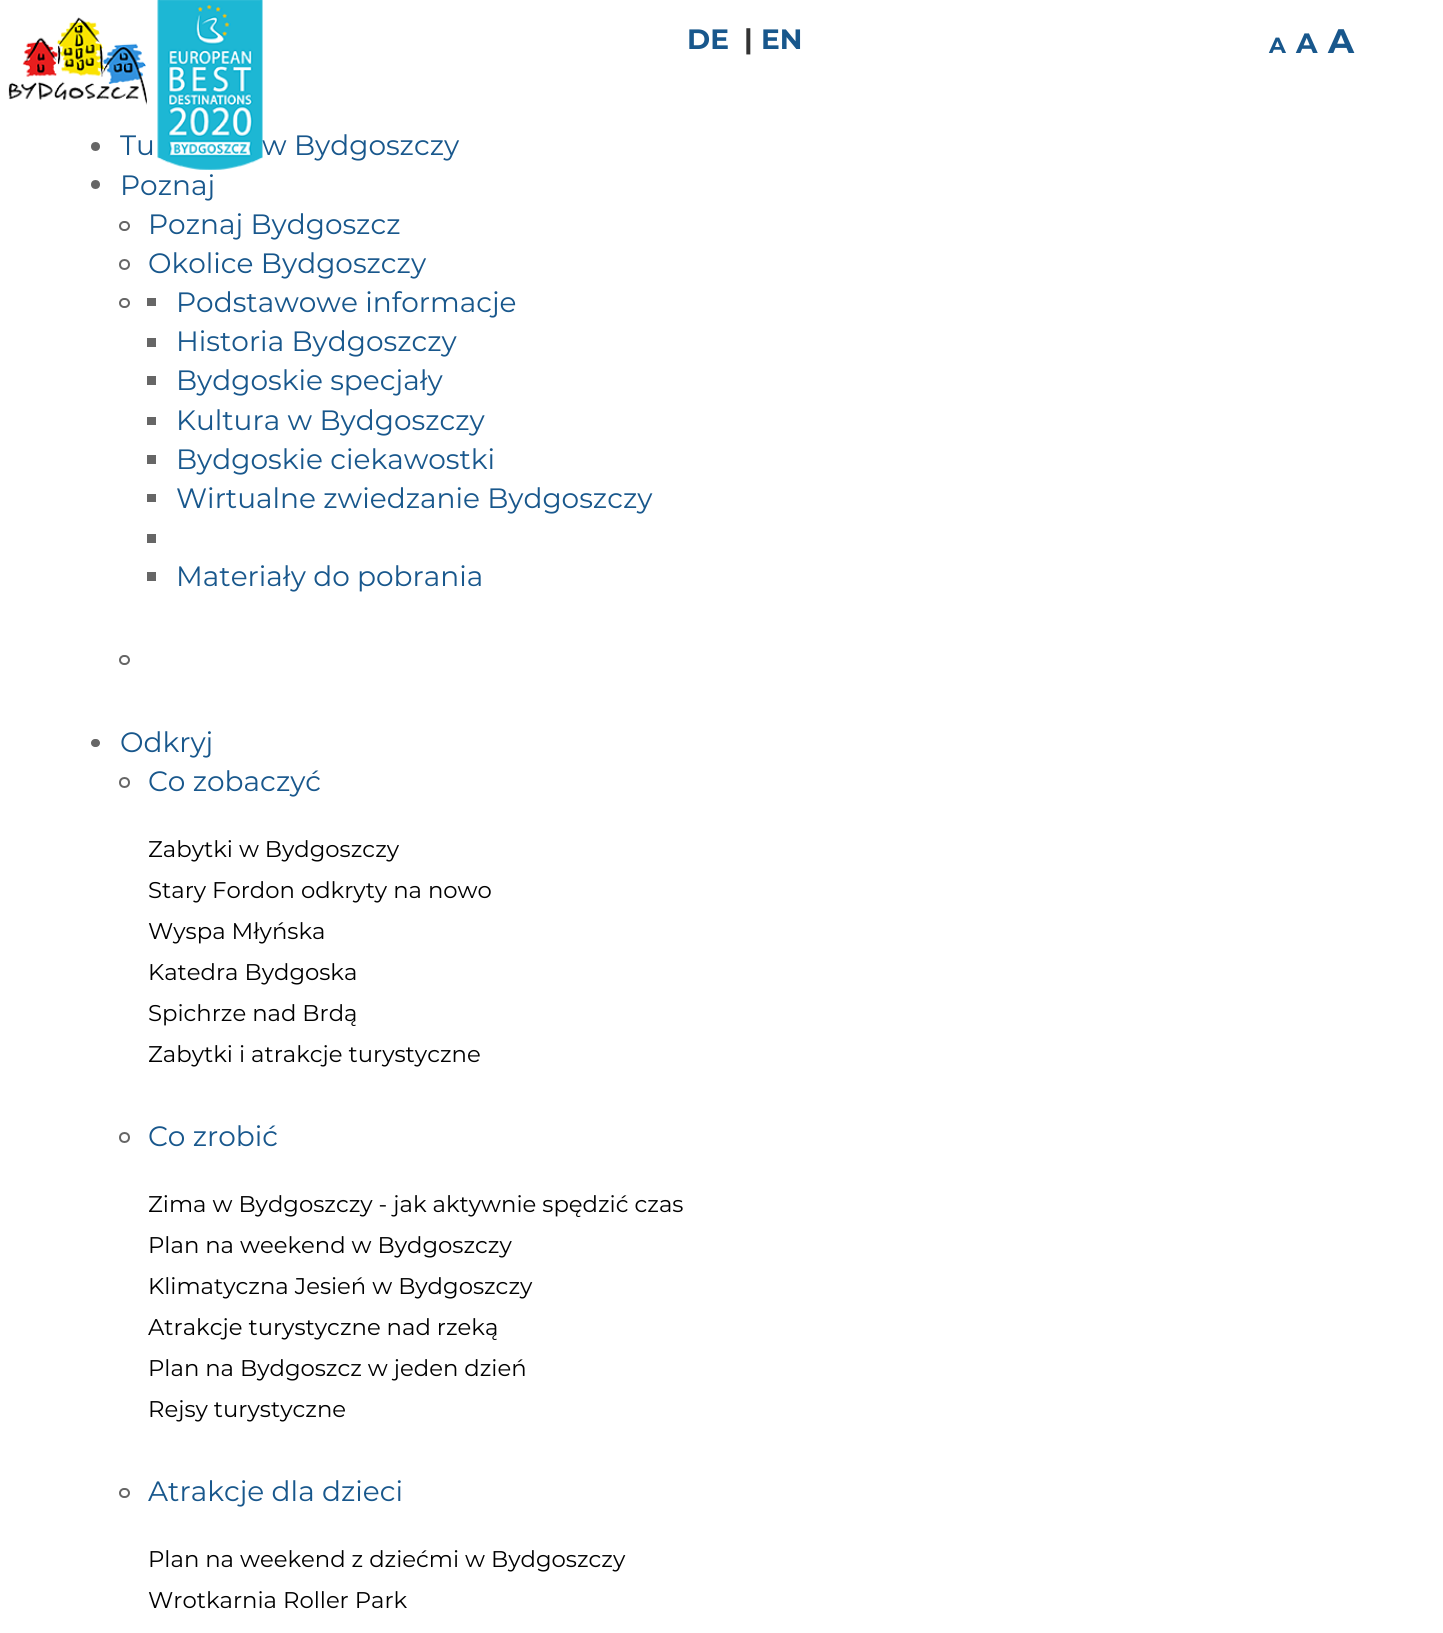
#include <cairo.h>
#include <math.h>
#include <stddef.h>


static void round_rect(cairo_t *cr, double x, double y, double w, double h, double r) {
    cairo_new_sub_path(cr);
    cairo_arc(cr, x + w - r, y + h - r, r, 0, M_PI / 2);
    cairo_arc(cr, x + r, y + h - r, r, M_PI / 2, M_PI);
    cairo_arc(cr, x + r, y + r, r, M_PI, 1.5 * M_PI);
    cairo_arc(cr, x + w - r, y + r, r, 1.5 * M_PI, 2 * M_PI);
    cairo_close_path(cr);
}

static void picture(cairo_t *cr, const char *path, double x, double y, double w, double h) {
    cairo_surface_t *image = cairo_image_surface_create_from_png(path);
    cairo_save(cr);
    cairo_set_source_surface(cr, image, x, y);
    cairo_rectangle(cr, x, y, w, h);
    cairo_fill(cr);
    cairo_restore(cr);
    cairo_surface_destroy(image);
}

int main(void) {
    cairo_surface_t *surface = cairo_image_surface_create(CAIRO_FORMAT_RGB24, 1443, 1633);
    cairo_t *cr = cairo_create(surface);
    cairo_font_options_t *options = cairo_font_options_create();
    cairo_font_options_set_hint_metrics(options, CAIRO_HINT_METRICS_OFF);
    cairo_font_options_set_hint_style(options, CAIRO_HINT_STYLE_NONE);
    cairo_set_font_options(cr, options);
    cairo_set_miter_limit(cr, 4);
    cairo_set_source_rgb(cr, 1, 1, 1);
    cairo_paint(cr);
    picture(cr, "img1.png", 8, 17, 139, 88);
    cairo_select_font_face(cr, "Montserrat", CAIRO_FONT_SLANT_NORMAL, CAIRO_FONT_WEIGHT_NORMAL);
    cairo_set_font_size(cr, 28);
    cairo_set_source_rgb(cr, 0.094, 0.341, 0.549);
    cairo_move_to(cr, 262, 155);
    cairo_show_text(cr, "w Bydgoszczy");
    picture(cr, "img2.png", 157, 0, 106, 170);
    cairo_select_font_face(cr, "Montserrat", CAIRO_FONT_SLANT_NORMAL, CAIRO_FONT_WEIGHT_BOLD);
    cairo_move_to(cr, 687, 49);
    cairo_show_text(cr, "DE");
    cairo_set_source_rgb(cr, 0.2, 0.2, 0.2);
    cairo_move_to(cr, 744, 49);
    cairo_show_text(cr, "|");
    cairo_set_source_rgb(cr, 0.094, 0.341, 0.549);
    cairo_move_to(cr, 761, 49);
    cairo_show_text(cr, "EN");
    cairo_set_source_rgb(cr, 0.4, 0.4, 0.4);
    cairo_new_path(cr);
    cairo_arc(cr, 95.5, 146.5, 4.5, 0, 2 * M_PI);
    cairo_fill(cr);
    cairo_select_font_face(cr, "Montserrat", CAIRO_FONT_SLANT_NORMAL, CAIRO_FONT_WEIGHT_NORMAL);
    cairo_set_source_rgb(cr, 0.094, 0.341, 0.549);
    cairo_move_to(cr, 120, 155);
    cairo_show_text(cr, "Tu");
    cairo_set_source_rgb(cr, 0.4, 0.4, 0.4);
    cairo_new_path(cr);
    cairo_arc(cr, 95.5, 184.5, 4.5, 0, 2 * M_PI);
    cairo_fill(cr);
    cairo_set_source_rgb(cr, 0.094, 0.341, 0.549);
    cairo_move_to(cr, 120, 195);
    cairo_show_text(cr, "Poznaj");
    round_rect(cr, 120, 222, 9, 8, 4);
    cairo_set_source_rgb(cr, 0.4, 0.4, 0.4);
    cairo_stroke(cr);
    cairo_set_source_rgb(cr, 0.094, 0.341, 0.549);
    cairo_move_to(cr, 148, 234);
    cairo_show_text(cr, "Poznaj Bydgoszcz");
    cairo_new_path(cr);
    cairo_arc(cr, 124.5, 264.5, 4.5, 0, 2 * M_PI);
    cairo_set_source_rgb(cr, 0.4, 0.4, 0.4);
    cairo_stroke(cr);
    cairo_set_source_rgb(cr, 0.094, 0.341, 0.549);
    cairo_move_to(cr, 148, 273);
    cairo_show_text(cr, "Okolice Bydgoszczy");
    round_rect(cr, 120, 299, 9, 8, 4);
    cairo_set_source_rgb(cr, 0.4, 0.4, 0.4);
    cairo_stroke(cr);
    cairo_rectangle(cr, 147, 298, 9, 8);
    cairo_fill(cr);
    cairo_set_source_rgb(cr, 0.094, 0.341, 0.549);
    cairo_move_to(cr, 176, 312);
    cairo_show_text(cr, "Podstawowe informacje");
    cairo_set_source_rgb(cr, 0.4, 0.4, 0.4);
    cairo_rectangle(cr, 147, 338, 9, 9);
    cairo_fill(cr);
    cairo_set_source_rgb(cr, 0.094, 0.341, 0.549);
    cairo_move_to(cr, 176, 351);
    cairo_show_text(cr, "Historia Bydgoszczy");
    cairo_set_source_rgb(cr, 0.4, 0.4, 0.4);
    cairo_rectangle(cr, 147, 376, 9, 9);
    cairo_fill(cr);
    cairo_set_source_rgb(cr, 0.094, 0.341, 0.549);
    cairo_move_to(cr, 176, 390);
    cairo_show_text(cr, "Bydgoskie specjały");
    cairo_set_source_rgb(cr, 0.4, 0.4, 0.4);
    cairo_rectangle(cr, 147, 417, 9, 8);
    cairo_fill(cr);
    cairo_set_source_rgb(cr, 0.094, 0.341, 0.549);
    cairo_move_to(cr, 176, 430);
    cairo_show_text(cr, "Kultura w Bydgoszczy");
    cairo_set_source_rgb(cr, 0.4, 0.4, 0.4);
    cairo_rectangle(cr, 147, 455, 9, 9);
    cairo_fill(cr);
    cairo_set_source_rgb(cr, 0.094, 0.341, 0.549);
    cairo_move_to(cr, 176, 469);
    cairo_show_text(cr, "Bydgoskie ciekawostki");
    cairo_set_source_rgb(cr, 0.4, 0.4, 0.4);
    cairo_rectangle(cr, 147, 494, 9, 8);
    cairo_fill(cr);
    cairo_set_source_rgb(cr, 0.094, 0.341, 0.549);
    cairo_move_to(cr, 176, 508);
    cairo_show_text(cr, "Wirtualne zwiedzanie Bydgoszczy");
    cairo_set_source_rgb(cr, 0.4, 0.4, 0.4);
    cairo_rectangle(cr, 147, 534, 9, 9);
    cairo_fill(cr);
    cairo_rectangle(cr, 147, 572, 9, 9);
    cairo_fill(cr);
    cairo_set_source_rgb(cr, 0.094, 0.341, 0.549);
    cairo_move_to(cr, 176, 586);
    cairo_show_text(cr, "Materiały do pobrania");
    round_rect(cr, 120, 656, 9, 8, 4);
    cairo_set_source_rgb(cr, 0.4, 0.4, 0.4);
    cairo_stroke(cr);
    round_rect(cr, 91, 739, 9, 8, 4);
    cairo_fill(cr);
    cairo_set_source_rgb(cr, 0.094, 0.341, 0.549);
    cairo_move_to(cr, 120, 752);
    cairo_show_text(cr, "Odkryj");
    cairo_new_path(cr);
    cairo_arc(cr, 124.5, 782.5, 4.5, 0, 2 * M_PI);
    cairo_set_source_rgb(cr, 0.4, 0.4, 0.4);
    cairo_stroke(cr);
    cairo_set_source_rgb(cr, 0.094, 0.341, 0.549);
    cairo_move_to(cr, 148, 791);
    cairo_show_text(cr, "Co zobaczyć");
    cairo_set_font_size(cr, 22.75);
    cairo_set_source_rgb(cr, 0, 0, 0);
    cairo_move_to(cr, 148, 857);
    cairo_show_text(cr, "Zabytki w Bydgoszczy");
    cairo_move_to(cr, 148, 898);
    cairo_show_text(cr, "Stary Fordon odkryty na nowo");
    cairo_move_to(cr, 148, 939);
    cairo_show_text(cr, "Wyspa Młyńska");
    cairo_move_to(cr, 148, 980);
    cairo_show_text(cr, "Katedra Bydgoska");
    cairo_move_to(cr, 148, 1021);
    cairo_show_text(cr, "Spichrze nad Brdą");
    cairo_move_to(cr, 148, 1062);
    cairo_show_text(cr, "Zabytki i atrakcje turystyczne");
    cairo_new_path(cr);
    cairo_arc(cr, 124.5, 1137.5, 4.5, 0, 2 * M_PI);
    cairo_set_source_rgb(cr, 0.4, 0.4, 0.4);
    cairo_stroke(cr);
    cairo_set_font_size(cr, 28);
    cairo_set_source_rgb(cr, 0.094, 0.341, 0.549);
    cairo_move_to(cr, 148, 1146);
    cairo_show_text(cr, "Co zrobić");
    cairo_set_font_size(cr, 22.75);
    cairo_set_source_rgb(cr, 0, 0, 0);
    cairo_move_to(cr, 148, 1212);
    cairo_show_text(cr, "Zima w Bydgoszczy - jak aktywnie spędzić czas");
    cairo_move_to(cr, 148, 1253);
    cairo_show_text(cr, "Plan na weekend w Bydgoszczy");
    cairo_move_to(cr, 148, 1294);
    cairo_show_text(cr, "Klimatyczna Jesień w Bydgoszczy");
    cairo_move_to(cr, 148, 1335);
    cairo_show_text(cr, "Atrakcje turystyczne nad rzeką");
    cairo_move_to(cr, 148, 1376);
    cairo_show_text(cr, "Plan na Bydgoszcz w jeden dzień");
    cairo_move_to(cr, 148, 1417);
    cairo_show_text(cr, "Rejsy turystyczne");
    round_rect(cr, 120, 1489, 9, 8, 4);
    cairo_set_source_rgb(cr, 0.4, 0.4, 0.4);
    cairo_stroke(cr);
    cairo_set_font_size(cr, 28);
    cairo_set_source_rgb(cr, 0.094, 0.341, 0.549);
    cairo_move_to(cr, 148, 1501);
    cairo_show_text(cr, "Atrakcje dla dzieci");
    cairo_set_font_size(cr, 22.75);
    cairo_set_source_rgb(cr, 0, 0, 0);
    cairo_move_to(cr, 148, 1567);
    cairo_show_text(cr, "Plan na weekend z dziećmi w Bydgoszczy");
    cairo_move_to(cr, 148, 1608);
    cairo_show_text(cr, "Wrotkarnia Roller Park");
    cairo_select_font_face(cr, "Montserrat", CAIRO_FONT_SLANT_NORMAL, CAIRO_FONT_WEIGHT_BOLD);
    cairo_set_font_size(cr, 22);
    cairo_set_source_rgb(cr, 0.094, 0.341, 0.549);
    cairo_move_to(cr, 1269, 53);
    cairo_show_text(cr, "A");
    cairo_set_font_size(cr, 28);
    cairo_move_to(cr, 1296, 53);
    cairo_show_text(cr, "A");
    cairo_set_font_size(cr, 34);
    cairo_move_to(cr, 1328, 53);
    cairo_show_text(cr, "A");
    cairo_surface_write_to_png(surface, "page.png");
    cairo_font_options_destroy(options);
    cairo_destroy(cr);
    cairo_surface_destroy(surface);
    return 0;
}
